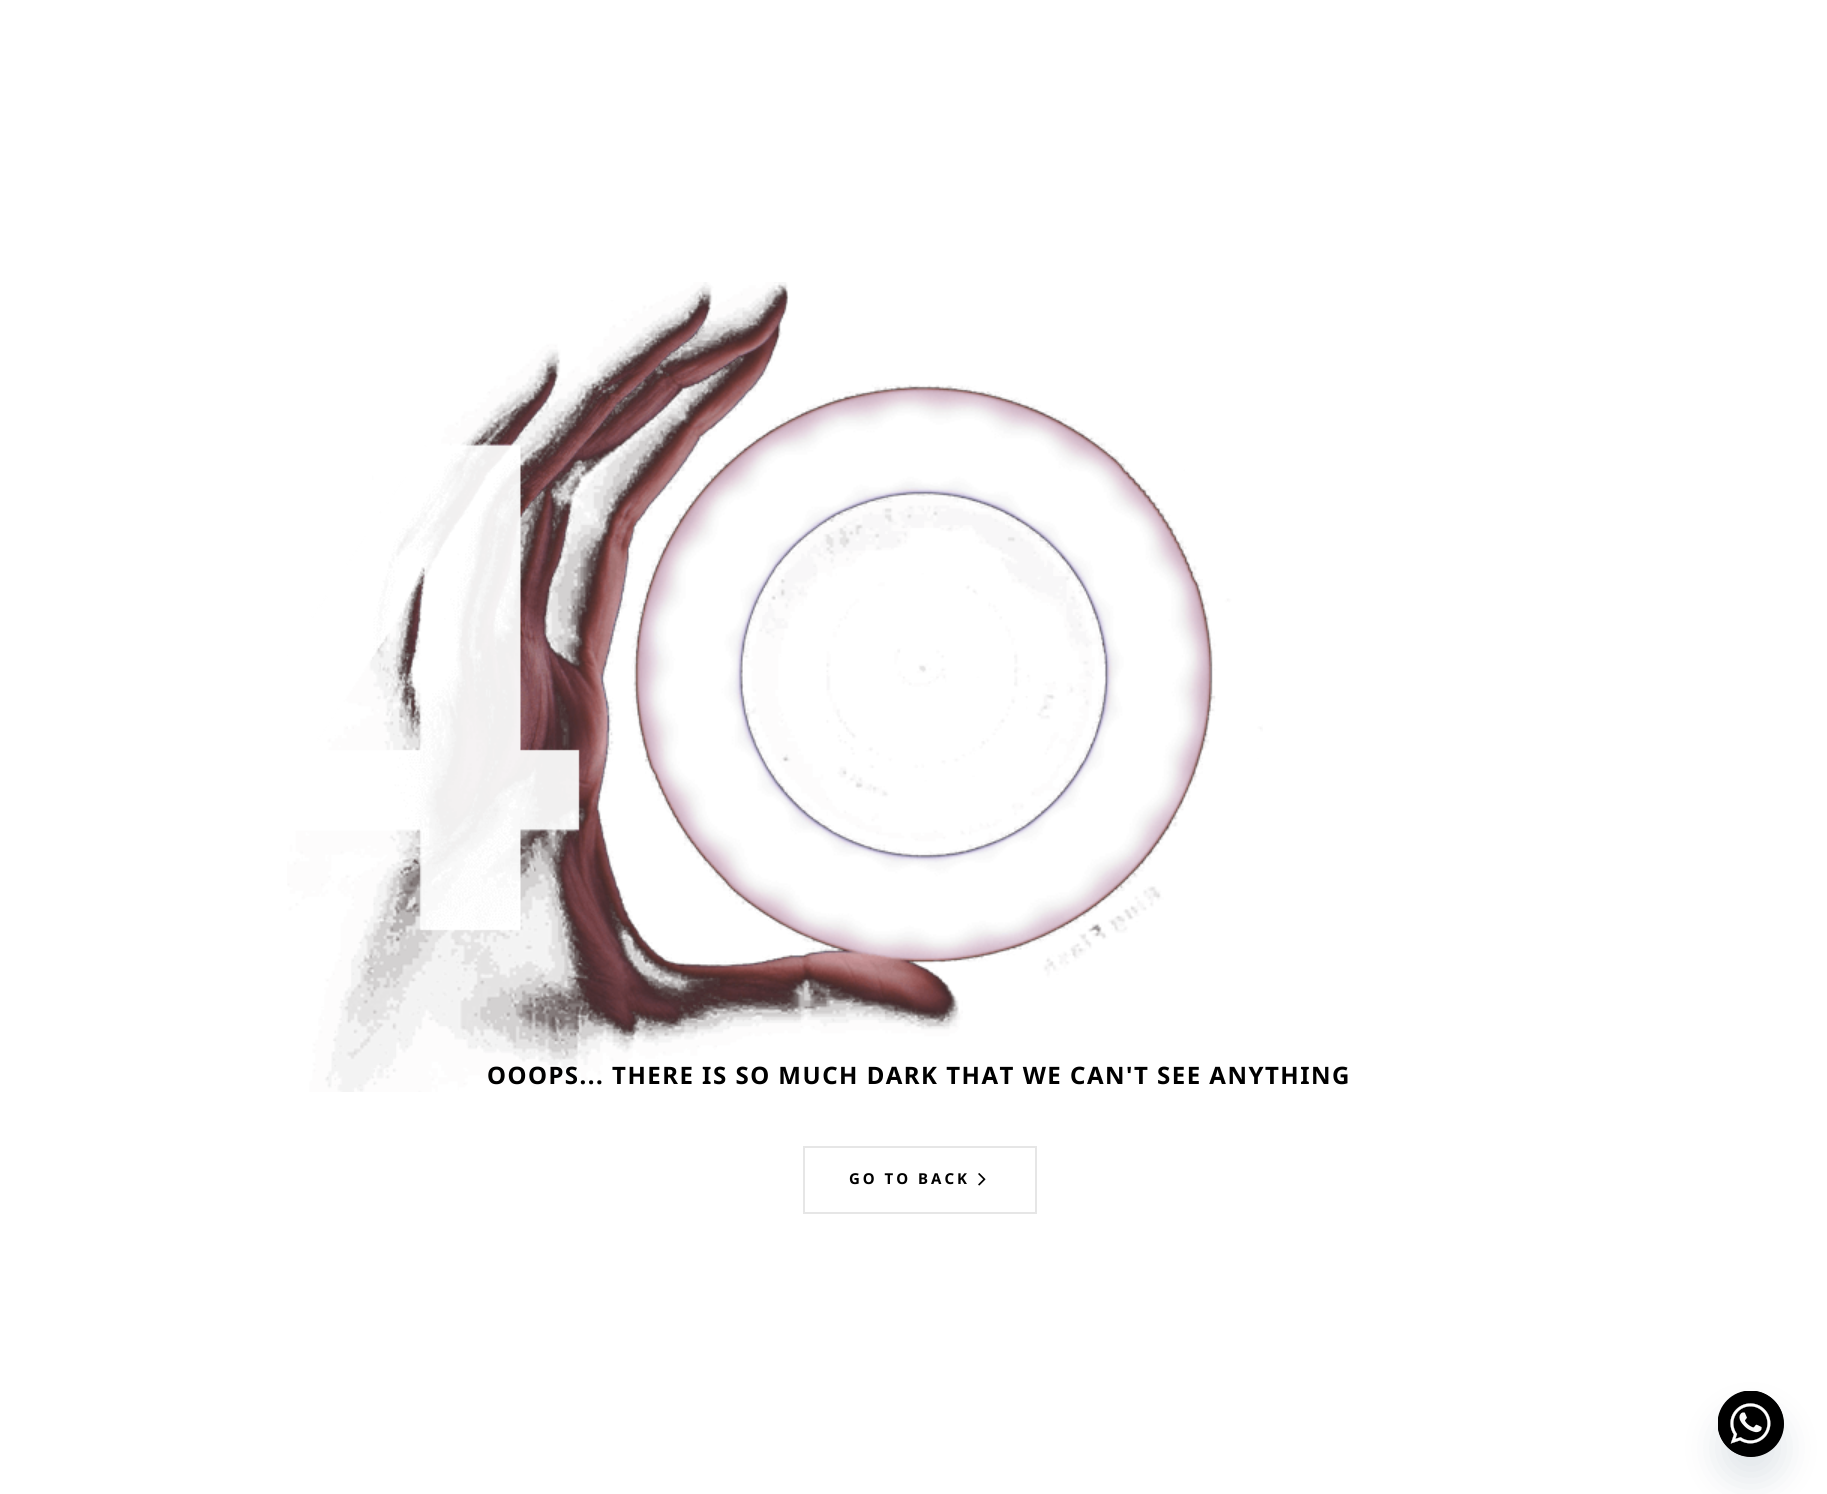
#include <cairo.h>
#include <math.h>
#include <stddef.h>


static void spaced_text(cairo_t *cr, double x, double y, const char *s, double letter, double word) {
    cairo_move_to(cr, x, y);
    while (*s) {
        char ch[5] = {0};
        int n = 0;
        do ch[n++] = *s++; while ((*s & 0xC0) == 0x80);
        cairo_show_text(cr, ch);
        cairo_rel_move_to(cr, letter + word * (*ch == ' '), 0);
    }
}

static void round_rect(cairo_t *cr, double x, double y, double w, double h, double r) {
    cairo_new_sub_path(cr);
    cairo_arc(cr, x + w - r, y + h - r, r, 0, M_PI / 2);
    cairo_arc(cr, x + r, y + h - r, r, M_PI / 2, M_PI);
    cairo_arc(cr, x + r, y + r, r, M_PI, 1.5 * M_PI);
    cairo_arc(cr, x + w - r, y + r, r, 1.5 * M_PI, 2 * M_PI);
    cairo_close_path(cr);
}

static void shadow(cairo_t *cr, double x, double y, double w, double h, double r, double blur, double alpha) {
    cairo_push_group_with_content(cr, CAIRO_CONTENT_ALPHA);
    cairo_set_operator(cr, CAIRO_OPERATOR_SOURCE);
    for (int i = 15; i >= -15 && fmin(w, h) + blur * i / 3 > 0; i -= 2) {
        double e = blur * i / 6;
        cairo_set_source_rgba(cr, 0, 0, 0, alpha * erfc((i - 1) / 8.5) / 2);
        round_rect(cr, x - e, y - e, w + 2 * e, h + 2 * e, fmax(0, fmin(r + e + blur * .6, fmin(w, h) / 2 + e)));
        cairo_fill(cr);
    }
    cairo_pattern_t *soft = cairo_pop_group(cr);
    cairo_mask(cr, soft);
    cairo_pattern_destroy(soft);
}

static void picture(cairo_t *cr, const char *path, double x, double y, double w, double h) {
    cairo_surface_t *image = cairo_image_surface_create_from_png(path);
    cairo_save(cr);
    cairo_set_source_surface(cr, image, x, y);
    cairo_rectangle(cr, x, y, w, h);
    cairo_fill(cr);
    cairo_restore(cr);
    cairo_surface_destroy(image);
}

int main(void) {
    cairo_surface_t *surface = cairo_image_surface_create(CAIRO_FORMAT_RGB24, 1827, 1494);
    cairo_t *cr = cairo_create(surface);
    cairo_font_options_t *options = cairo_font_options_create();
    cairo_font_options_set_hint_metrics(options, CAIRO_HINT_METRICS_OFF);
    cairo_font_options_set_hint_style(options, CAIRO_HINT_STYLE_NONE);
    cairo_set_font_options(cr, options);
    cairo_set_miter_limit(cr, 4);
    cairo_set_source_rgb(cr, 1, 1, 1);
    cairo_paint(cr);
    picture(cr, "img2.png", 287, 282, 976, 810);
    cairo_select_font_face(cr, "Noto Sans", CAIRO_FONT_SLANT_NORMAL, CAIRO_FONT_WEIGHT_BOLD);
    cairo_set_font_size(cr, 24);
    cairo_set_source_rgb(cr, 0, 0, 0);
    spaced_text(cr, 487, 1084, "OOOPS... THERE IS SO MUCH DARK THAT WE CAN'T SEE ANYTHING", 1.5, 0);
    picture(cr, "img1.png", 549, 547, 379, 531);
    cairo_rectangle(cr, 804, 1147, 232, 66);
    cairo_set_source_rgb(cr, 0.902, 0.902, 0.902);
    cairo_stroke(cr);
    cairo_set_font_size(cr, 15);
    cairo_set_source_rgb(cr, 0, 0, 0);
    spaced_text(cr, 849, 1184, "GO TO BACK", 3, 0);
    picture(cr, "img3.png", 978, 1173, 8, 13);
    cairo_set_source_rgb(cr, 0.286, 0.408, 0.494);
    shadow(cr, 1718, 1415, 66, 66, 33, 18, 0.16);
    cairo_set_source_rgb(cr, 0, 0, 0);
    cairo_arc(cr, 1751, 1424, 33, 0, 2 * M_PI);
    cairo_fill(cr);
    picture(cr, "img4.png", 1718, 1391, 66, 66);
    cairo_surface_write_to_png(surface, "page.png");
    cairo_font_options_destroy(options);
    cairo_destroy(cr);
    cairo_surface_destroy(surface);
    return 0;
}
